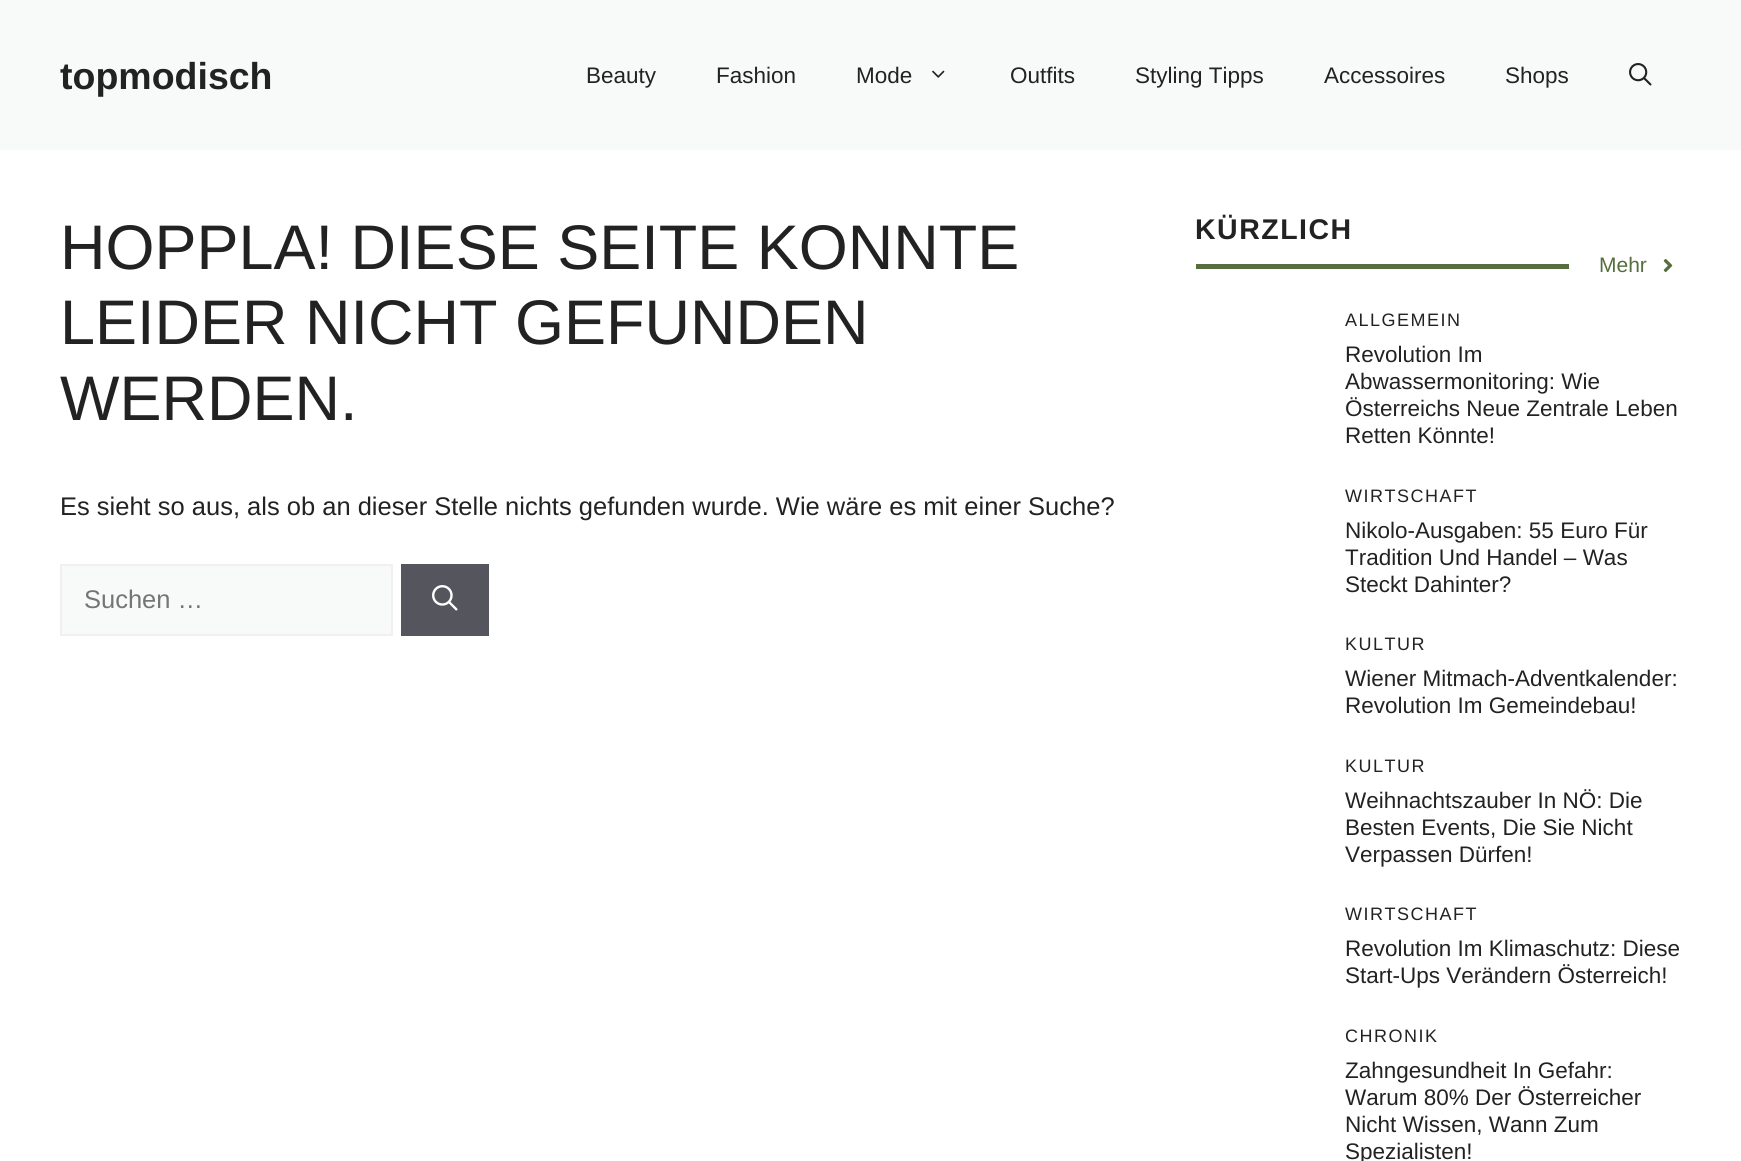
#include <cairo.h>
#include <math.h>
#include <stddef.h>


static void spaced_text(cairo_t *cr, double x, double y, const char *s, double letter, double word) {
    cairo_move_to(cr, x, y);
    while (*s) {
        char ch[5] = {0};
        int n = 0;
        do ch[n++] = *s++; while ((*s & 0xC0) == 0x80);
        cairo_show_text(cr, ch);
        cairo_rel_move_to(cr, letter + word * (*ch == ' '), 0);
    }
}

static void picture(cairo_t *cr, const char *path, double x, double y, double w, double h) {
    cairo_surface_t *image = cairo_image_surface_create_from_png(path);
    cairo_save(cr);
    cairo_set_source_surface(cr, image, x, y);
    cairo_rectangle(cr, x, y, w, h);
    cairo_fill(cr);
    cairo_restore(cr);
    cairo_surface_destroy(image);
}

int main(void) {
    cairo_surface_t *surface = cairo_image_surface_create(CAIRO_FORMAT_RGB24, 1741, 1161);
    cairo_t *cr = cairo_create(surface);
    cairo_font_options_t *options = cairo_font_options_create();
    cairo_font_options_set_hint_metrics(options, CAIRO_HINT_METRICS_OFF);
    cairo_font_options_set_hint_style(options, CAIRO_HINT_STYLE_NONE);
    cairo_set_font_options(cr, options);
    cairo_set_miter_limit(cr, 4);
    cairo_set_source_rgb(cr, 1, 1, 1);
    cairo_paint(cr);
    cairo_set_source_rgb(cr, 0.969, 0.973, 0.976);
    cairo_rectangle(cr, 0, 0, 1741, 150);
    cairo_fill(cr);
    cairo_select_font_face(cr, "Liberation Sans", CAIRO_FONT_SLANT_NORMAL, CAIRO_FONT_WEIGHT_BOLD);
    cairo_set_font_size(cr, 37.5);
    cairo_set_source_rgb(cr, 0.133, 0.133, 0.133);
    cairo_move_to(cr, 60, 89);
    cairo_show_text(cr, "topmodisch");
    cairo_select_font_face(cr, "Liberation Sans", CAIRO_FONT_SLANT_NORMAL, CAIRO_FONT_WEIGHT_NORMAL);
    cairo_set_font_size(cr, 22.5);
    cairo_move_to(cr, 586, 83);
    cairo_show_text(cr, "Beauty");
    cairo_move_to(cr, 716, 83);
    cairo_show_text(cr, "Fashion");
    cairo_move_to(cr, 856, 83);
    cairo_show_text(cr, "Mode");
    picture(cr, "img1.png", 932, 70, 13, 8);
    cairo_move_to(cr, 1010, 83);
    cairo_show_text(cr, "Outfits");
    cairo_move_to(cr, 1135, 83);
    cairo_show_text(cr, "Styling Tipps");
    cairo_move_to(cr, 1324, 83);
    cairo_show_text(cr, "Accessoires");
    cairo_move_to(cr, 1505, 83);
    cairo_show_text(cr, "Shops");
    picture(cr, "img2.png", 1629, 63, 23, 23);
    cairo_set_font_size(cr, 63);
    cairo_move_to(cr, 60, 269);
    cairo_show_text(cr, "HOPPLA! DIESE SEITE KONNTE");
    cairo_move_to(cr, 60, 344);
    cairo_show_text(cr, "LEIDER NICHT GEFUNDEN");
    cairo_move_to(cr, 60, 420);
    cairo_show_text(cr, "WERDEN.");
    cairo_set_font_size(cr, 25.5);
    cairo_move_to(cr, 60, 515);
    cairo_show_text(cr, "Es sieht so aus, als ob an dieser Stelle nichts gefunden wurde. Wie wäre es mit einer Suche?");
    cairo_set_source_rgb(cr, 0.969, 0.973, 0.976);
    cairo_rectangle(cr, 61, 565, 331, 70);
    cairo_fill_preserve(cr);
    cairo_set_source_rgb(cr, 0.941, 0.941, 0.941);
    cairo_stroke(cr);
    cairo_set_source_rgb(cr, 0.459, 0.459, 0.459);
    cairo_move_to(cr, 84, 608);
    cairo_show_text(cr, "Suchen …");
    cairo_set_source_rgb(cr, 0.333, 0.333, 0.369);
    cairo_rectangle(cr, 401, 564, 88, 72);
    cairo_fill(cr);
    picture(cr, "img3.png", 432, 585, 26, 26);
    cairo_select_font_face(cr, "Liberation Sans", CAIRO_FONT_SLANT_NORMAL, CAIRO_FONT_WEIGHT_BOLD);
    cairo_set_font_size(cr, 28.5);
    cairo_set_source_rgb(cr, 0.133, 0.133, 0.133);
    spaced_text(cr, 1195, 239, "KÜRZLICH", 1.5, 0);
    cairo_set_source_rgb(cr, 0.337, 0.431, 0.239);
    cairo_rectangle(cr, 1196, 264, 373, 5);
    cairo_fill(cr);
    cairo_select_font_face(cr, "Liberation Sans", CAIRO_FONT_SLANT_NORMAL, CAIRO_FONT_WEIGHT_NORMAL);
    cairo_set_font_size(cr, 21);
    cairo_move_to(cr, 1599, 272);
    cairo_show_text(cr, "Mehr");
    picture(cr, "img4.png", 1663, 258, 10, 14);
    cairo_set_font_size(cr, 18);
    cairo_set_source_rgb(cr, 0.133, 0.133, 0.133);
    spaced_text(cr, 1345, 326, "ALLGEMEIN", 1.5, 0);
    cairo_set_font_size(cr, 22.5);
    cairo_move_to(cr, 1345, 362);
    cairo_show_text(cr, "Revolution Im");
    cairo_move_to(cr, 1345, 389);
    cairo_show_text(cr, "Abwassermonitoring: Wie");
    cairo_move_to(cr, 1345, 416);
    cairo_show_text(cr, "Österreichs Neue Zentrale Leben");
    cairo_move_to(cr, 1345, 443);
    cairo_show_text(cr, "Retten Könnte!");
    cairo_set_font_size(cr, 18);
    spaced_text(cr, 1345, 502, "WIRTSCHAFT", 1.5, 0);
    cairo_set_font_size(cr, 22.5);
    cairo_move_to(cr, 1345, 538);
    cairo_show_text(cr, "Nikolo-Ausgaben: 55 Euro Für");
    cairo_move_to(cr, 1345, 565);
    cairo_show_text(cr, "Tradition Und Handel – Was");
    cairo_move_to(cr, 1345, 592);
    cairo_show_text(cr, "Steckt Dahinter?");
    cairo_set_font_size(cr, 18);
    spaced_text(cr, 1345, 650, "KULTUR", 1.5, 0);
    cairo_set_font_size(cr, 22.5);
    cairo_move_to(cr, 1345, 686);
    cairo_show_text(cr, "Wiener Mitmach-Adventkalender:");
    cairo_move_to(cr, 1345, 713);
    cairo_show_text(cr, "Revolution Im Gemeindebau!");
    cairo_set_font_size(cr, 18);
    spaced_text(cr, 1345, 772, "KULTUR", 1.5, 0);
    cairo_set_font_size(cr, 22.5);
    cairo_move_to(cr, 1345, 808);
    cairo_show_text(cr, "Weihnachtszauber In NÖ: Die");
    cairo_move_to(cr, 1345, 835);
    cairo_show_text(cr, "Besten Events, Die Sie Nicht");
    cairo_move_to(cr, 1345, 862);
    cairo_show_text(cr, "Verpassen Dürfen!");
    cairo_set_font_size(cr, 18);
    spaced_text(cr, 1345, 920, "WIRTSCHAFT", 1.5, 0);
    cairo_set_font_size(cr, 22.5);
    cairo_move_to(cr, 1345, 956);
    cairo_show_text(cr, "Revolution Im Klimaschutz: Diese");
    cairo_move_to(cr, 1345, 983);
    cairo_show_text(cr, "Start-Ups Verändern Österreich!");
    cairo_set_font_size(cr, 18);
    spaced_text(cr, 1345, 1042, "CHRONIK", 1.5, 0);
    cairo_set_font_size(cr, 22.5);
    cairo_move_to(cr, 1345, 1078);
    cairo_show_text(cr, "Zahngesundheit In Gefahr:");
    cairo_move_to(cr, 1345, 1105);
    cairo_show_text(cr, "Warum 80% Der Österreicher");
    cairo_move_to(cr, 1345, 1132);
    cairo_show_text(cr, "Nicht Wissen, Wann Zum");
    cairo_move_to(cr, 1345, 1159);
    cairo_show_text(cr, "Spezialisten!");
    cairo_surface_write_to_png(surface, "page.png");
    cairo_font_options_destroy(options);
    cairo_destroy(cr);
    cairo_surface_destroy(surface);
    return 0;
}
